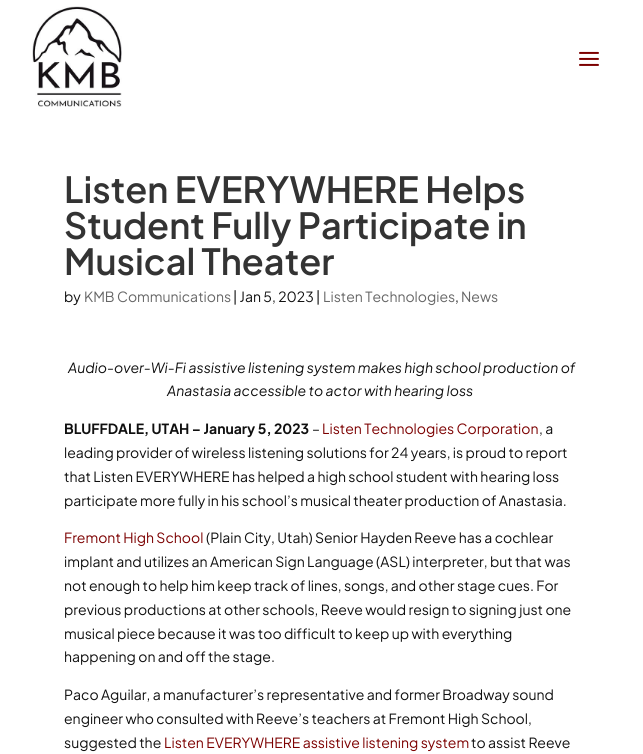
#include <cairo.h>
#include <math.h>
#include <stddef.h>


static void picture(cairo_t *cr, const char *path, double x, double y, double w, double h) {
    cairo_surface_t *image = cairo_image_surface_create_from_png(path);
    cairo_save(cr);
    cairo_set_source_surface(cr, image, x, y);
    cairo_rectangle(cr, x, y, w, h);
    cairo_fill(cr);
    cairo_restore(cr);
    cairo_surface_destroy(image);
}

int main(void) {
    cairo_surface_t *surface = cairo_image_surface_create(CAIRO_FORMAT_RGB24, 643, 754);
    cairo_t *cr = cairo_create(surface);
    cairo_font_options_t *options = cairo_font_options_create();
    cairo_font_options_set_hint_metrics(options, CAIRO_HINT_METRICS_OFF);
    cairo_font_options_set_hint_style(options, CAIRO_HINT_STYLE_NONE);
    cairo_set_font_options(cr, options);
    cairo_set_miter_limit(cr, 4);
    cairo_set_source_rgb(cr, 1, 1, 1);
    cairo_paint(cr);
    picture(cr, "img1.png", 32, 6, 90, 101);
    picture(cr, "img2.png", 579, 51, 20, 15);
    cairo_select_font_face(cr, "Plus Jakarta Sans SemiBold", CAIRO_FONT_SLANT_NORMAL, CAIRO_FONT_WEIGHT_NORMAL);
    cairo_set_font_size(cr, 36);
    cairo_set_source_rgb(cr, 0.2, 0.2, 0.2);
    cairo_move_to(cr, 64, 203);
    cairo_show_text(cr, "Listen EVERYWHERE Helps");
    cairo_move_to(cr, 64, 239);
    cairo_show_text(cr, "Student Fully Participate in");
    cairo_move_to(cr, 64, 275);
    cairo_show_text(cr, "Musical Theater");
    cairo_select_font_face(cr, "Plus Jakarta Sans", CAIRO_FONT_SLANT_NORMAL, CAIRO_FONT_WEIGHT_NORMAL);
    cairo_set_font_size(cr, 14);
    cairo_set_source_rgb(cr, 0.059, 0.059, 0.059);
    cairo_move_to(cr, 64, 302);
    cairo_show_text(cr, "by");
    cairo_set_source_rgb(cr, 0.4, 0.4, 0.4);
    cairo_move_to(cr, 84, 302);
    cairo_show_text(cr, "KMB Communications");
    cairo_set_source_rgb(cr, 0.059, 0.059, 0.059);
    cairo_move_to(cr, 233, 302);
    cairo_show_text(cr, "| Jan 5, 2023 |");
    cairo_set_source_rgb(cr, 0.4, 0.4, 0.4);
    cairo_move_to(cr, 323, 302);
    cairo_show_text(cr, "Listen Technologies");
    cairo_set_source_rgb(cr, 0.059, 0.059, 0.059);
    cairo_move_to(cr, 455, 302);
    cairo_show_text(cr, ",");
    cairo_set_source_rgb(cr, 0.4, 0.4, 0.4);
    cairo_move_to(cr, 461, 302);
    cairo_show_text(cr, "News");
    cairo_select_font_face(cr, "Plus Jakarta Sans", CAIRO_FONT_SLANT_ITALIC, CAIRO_FONT_WEIGHT_NORMAL);
    cairo_set_source_rgb(cr, 0.059, 0.059, 0.059);
    cairo_move_to(cr, 68, 373);
    cairo_show_text(cr, "Audio-over-Wi-Fi assistive listening system makes high school production of");
    cairo_move_to(cr, 167, 396);
    cairo_show_text(cr, "Anastasia accessible to actor with hearing loss");
    cairo_select_font_face(cr, "Plus Jakarta Sans", CAIRO_FONT_SLANT_NORMAL, CAIRO_FONT_WEIGHT_BOLD);
    cairo_move_to(cr, 64, 434);
    cairo_show_text(cr, "BLUFFDALE, UTAH – January 5, 2023");
    cairo_select_font_face(cr, "Plus Jakarta Sans", CAIRO_FONT_SLANT_NORMAL, CAIRO_FONT_WEIGHT_NORMAL);
    cairo_move_to(cr, 312, 434);
    cairo_show_text(cr, "–");
    cairo_set_source_rgb(cr, 0.486, 0, 0);
    cairo_move_to(cr, 322, 434);
    cairo_show_text(cr, "Listen Technologies Corporation");
    cairo_set_source_rgb(cr, 0.059, 0.059, 0.059);
    cairo_move_to(cr, 539, 434);
    cairo_show_text(cr, ", a");
    cairo_move_to(cr, 64, 458);
    cairo_show_text(cr, "leading provider of wireless listening solutions for 24 years, is proud to report");
    cairo_move_to(cr, 64, 482);
    cairo_show_text(cr, "that Listen EVERYWHERE has helped a high school student with hearing loss");
    cairo_move_to(cr, 64, 506);
    cairo_show_text(cr, "participate more fully in his school’s musical theater production of Anastasia.");
    cairo_set_source_rgb(cr, 0.486, 0, 0);
    cairo_move_to(cr, 64, 543);
    cairo_show_text(cr, "Fremont High School");
    cairo_set_source_rgb(cr, 0.059, 0.059, 0.059);
    cairo_move_to(cr, 206, 543);
    cairo_show_text(cr, "(Plain City, Utah) Senior Hayden Reeve has a cochlear");
    cairo_move_to(cr, 64, 567);
    cairo_show_text(cr, "implant and utilizes an American Sign Language (ASL) interpreter, but that was");
    cairo_move_to(cr, 64, 591);
    cairo_show_text(cr, "not enough to help him keep track of lines, songs, and other stage cues. For");
    cairo_move_to(cr, 64, 615);
    cairo_show_text(cr, "previous productions at other schools, Reeve would resign to signing just one");
    cairo_move_to(cr, 64, 639);
    cairo_show_text(cr, "musical piece because it was too difficult to keep up with everything");
    cairo_move_to(cr, 64, 662);
    cairo_show_text(cr, "happening on and off the stage.");
    cairo_move_to(cr, 64, 700);
    cairo_show_text(cr, "Paco Aguilar, a manufacturer’s representative and former Broadway sound");
    cairo_move_to(cr, 64, 724);
    cairo_show_text(cr, "engineer who consulted with Reeve’s teachers at Fremont High School,");
    cairo_move_to(cr, 64, 748);
    cairo_show_text(cr, "suggested the");
    cairo_set_source_rgb(cr, 0.486, 0, 0);
    cairo_move_to(cr, 164, 748);
    cairo_show_text(cr, "Listen EVERYWHERE assistive listening system");
    cairo_set_source_rgb(cr, 0.059, 0.059, 0.059);
    cairo_move_to(cr, 471, 748);
    cairo_show_text(cr, "to assist Reeve");
    cairo_surface_write_to_png(surface, "page.png");
    cairo_font_options_destroy(options);
    cairo_destroy(cr);
    cairo_surface_destroy(surface);
    return 0;
}
